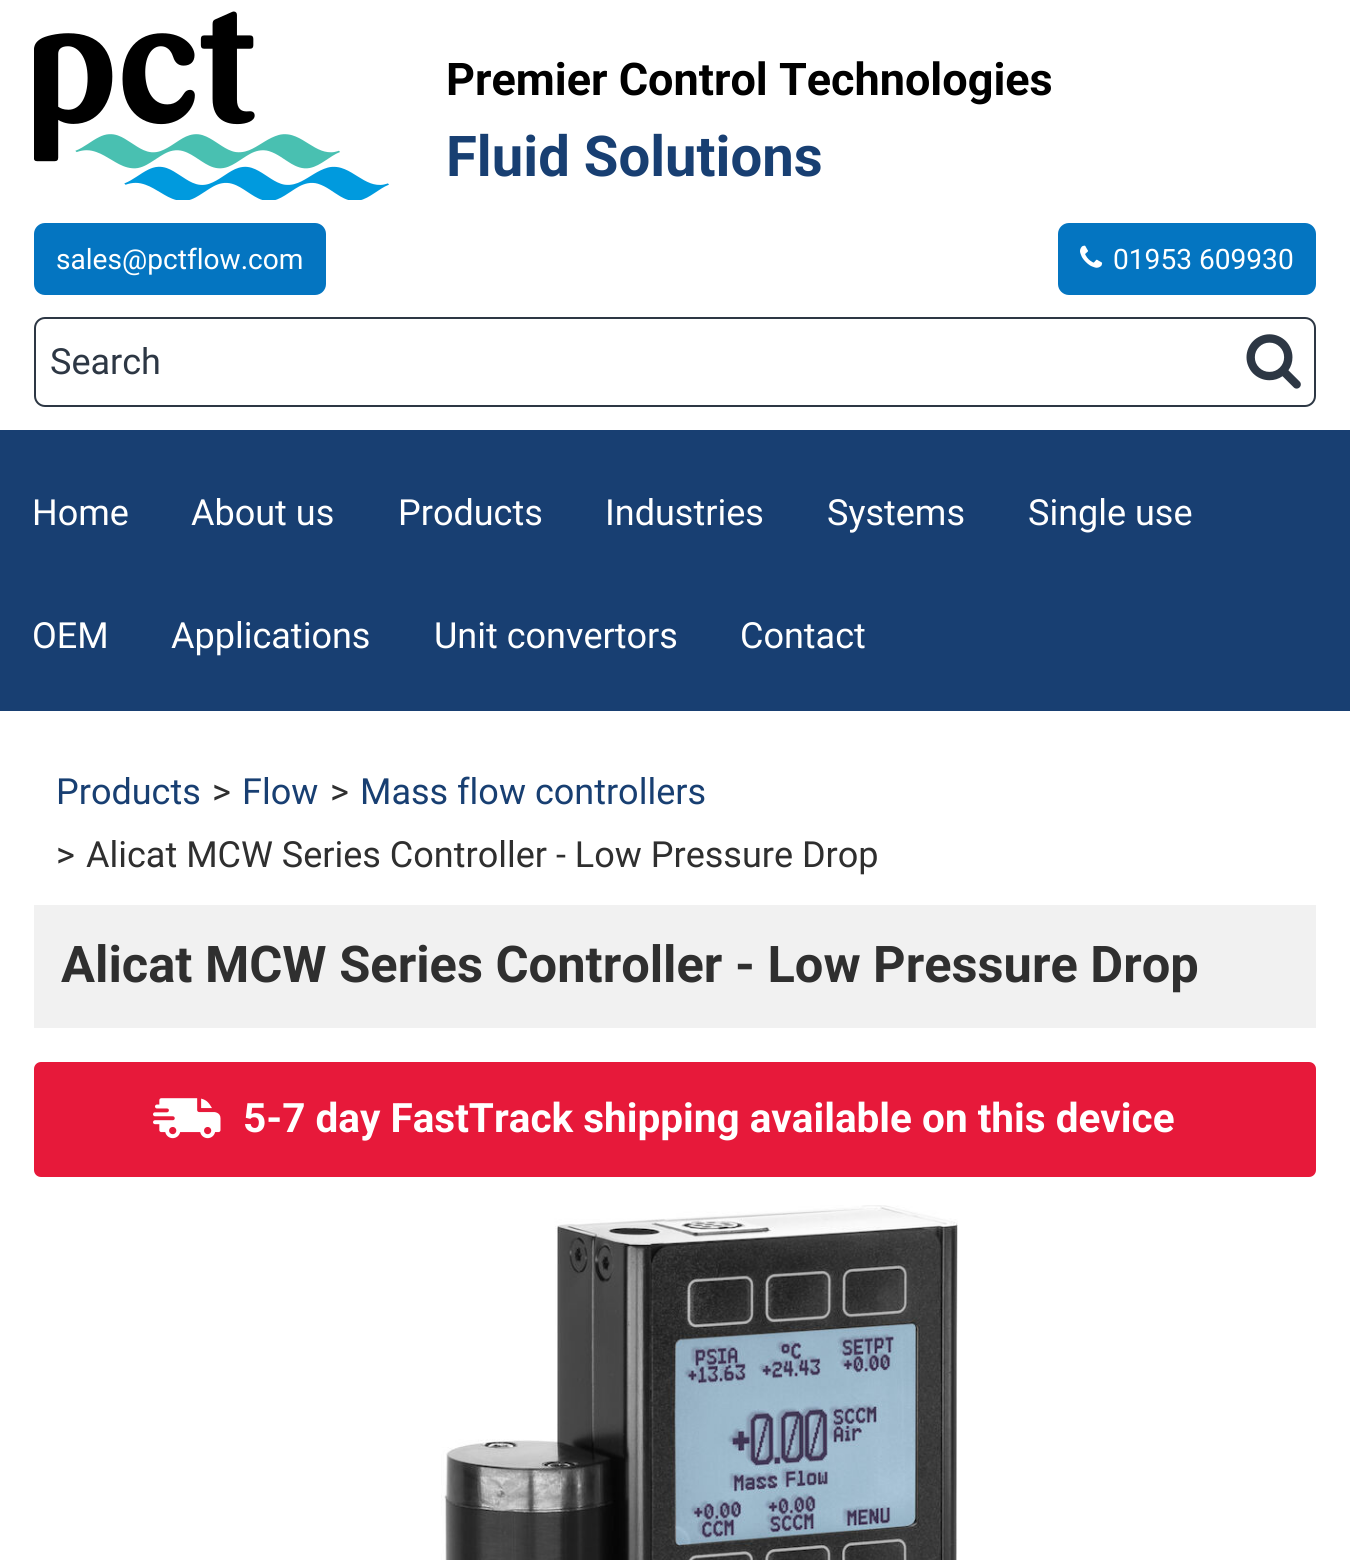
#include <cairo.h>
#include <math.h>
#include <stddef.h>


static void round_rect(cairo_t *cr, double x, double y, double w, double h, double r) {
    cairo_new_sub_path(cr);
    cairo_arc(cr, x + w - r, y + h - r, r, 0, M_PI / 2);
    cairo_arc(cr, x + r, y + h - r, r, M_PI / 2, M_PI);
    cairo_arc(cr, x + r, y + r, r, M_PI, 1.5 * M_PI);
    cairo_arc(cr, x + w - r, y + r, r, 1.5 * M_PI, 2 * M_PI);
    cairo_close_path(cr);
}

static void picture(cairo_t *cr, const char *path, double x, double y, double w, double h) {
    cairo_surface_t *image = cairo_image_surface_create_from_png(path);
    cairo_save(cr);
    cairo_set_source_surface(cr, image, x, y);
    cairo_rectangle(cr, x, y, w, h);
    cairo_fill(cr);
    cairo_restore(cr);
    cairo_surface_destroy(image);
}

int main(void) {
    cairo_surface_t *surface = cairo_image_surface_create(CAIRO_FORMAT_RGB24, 1350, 1560);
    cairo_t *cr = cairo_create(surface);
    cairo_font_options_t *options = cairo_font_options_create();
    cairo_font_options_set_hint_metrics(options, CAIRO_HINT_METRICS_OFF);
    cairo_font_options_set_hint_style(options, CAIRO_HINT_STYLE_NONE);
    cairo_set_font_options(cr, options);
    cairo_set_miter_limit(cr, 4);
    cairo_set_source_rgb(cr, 0.094, 0.247, 0.447);
    cairo_paint(cr);
    cairo_set_source_rgb(cr, 1, 1, 1);
    cairo_rectangle(cr, 0, 0, 1350, 430);
    cairo_fill(cr);
    picture(cr, "img1.png", 34, 11, 355, 189);
    cairo_select_font_face(cr, "Roboto", CAIRO_FONT_SLANT_NORMAL, CAIRO_FONT_WEIGHT_BOLD);
    cairo_set_font_size(cr, 45);
    cairo_set_source_rgb(cr, 0, 0, 0);
    cairo_move_to(cr, 446, 95);
    cairo_show_text(cr, "Premier Control Technologies");
    cairo_set_font_size(cr, 56.25);
    cairo_set_source_rgb(cr, 0.094, 0.247, 0.447);
    cairo_move_to(cr, 446, 176);
    cairo_show_text(cr, "Fluid Solutions");
    cairo_set_source_rgb(cr, 0.016, 0.459, 0.757);
    round_rect(cr, 34, 223, 292, 72, 11);
    cairo_fill(cr);
    cairo_select_font_face(cr, "Roboto", CAIRO_FONT_SLANT_NORMAL, CAIRO_FONT_WEIGHT_NORMAL);
    cairo_set_font_size(cr, 28.1);
    cairo_set_source_rgb(cr, 1, 1, 1);
    cairo_move_to(cr, 56, 269);
    cairo_show_text(cr, "sales@pctflow.com");
    cairo_set_source_rgb(cr, 0.016, 0.459, 0.757);
    round_rect(cr, 1058, 223, 258, 72, 11);
    cairo_fill(cr);
    picture(cr, "img2.png", 1080, 245, 23, 23);
    cairo_set_source_rgb(cr, 1, 1, 1);
    cairo_move_to(cr, 1113, 269);
    cairo_show_text(cr, "01953 609930");
    round_rect(cr, 35, 318, 1280, 88, 10);
    cairo_set_source_rgb(cr, 0.176, 0.216, 0.267);
    cairo_stroke(cr);
    cairo_set_font_size(cr, 36);
    cairo_move_to(cr, 50, 374);
    cairo_show_text(cr, "Search");
    picture(cr, "img3.png", 1246, 334, 55, 55);
    cairo_set_source_rgb(cr, 1, 1, 1);
    cairo_move_to(cr, 32, 525);
    cairo_show_text(cr, "Home");
    cairo_move_to(cr, 191, 525);
    cairo_show_text(cr, "About us");
    cairo_move_to(cr, 398, 525);
    cairo_show_text(cr, "Products");
    cairo_move_to(cr, 605, 525);
    cairo_show_text(cr, "Industries");
    cairo_move_to(cr, 827, 525);
    cairo_show_text(cr, "Systems");
    cairo_move_to(cr, 1028, 525);
    cairo_show_text(cr, "Single use");
    cairo_move_to(cr, 32, 648);
    cairo_show_text(cr, "OEM");
    cairo_move_to(cr, 171, 648);
    cairo_show_text(cr, "Applications");
    cairo_move_to(cr, 434, 648);
    cairo_show_text(cr, "Unit convertors");
    cairo_move_to(cr, 740, 648);
    cairo_show_text(cr, "Contact");
    cairo_rectangle(cr, 0, 711, 1350, 849);
    cairo_fill(cr);
    cairo_set_source_rgb(cr, 0.094, 0.247, 0.447);
    cairo_move_to(cr, 56, 804);
    cairo_show_text(cr, "Products");
    cairo_set_source_rgb(cr, 0.184, 0.184, 0.184);
    cairo_move_to(cr, 212, 804);
    cairo_show_text(cr, ">");
    cairo_set_source_rgb(cr, 0.094, 0.247, 0.447);
    cairo_move_to(cr, 242, 804);
    cairo_show_text(cr, "Flow");
    cairo_set_source_rgb(cr, 0.184, 0.184, 0.184);
    cairo_move_to(cr, 330, 804);
    cairo_show_text(cr, ">");
    cairo_set_source_rgb(cr, 0.094, 0.247, 0.447);
    cairo_move_to(cr, 360, 804);
    cairo_show_text(cr, "Mass flow controllers");
    cairo_set_source_rgb(cr, 0.184, 0.184, 0.184);
    cairo_move_to(cr, 56, 867);
    cairo_show_text(cr, ">");
    cairo_move_to(cr, 86, 867);
    cairo_show_text(cr, "Alicat MCW Series Controller - Low Pressure Drop");
    cairo_set_source_rgb(cr, 0.945, 0.945, 0.945);
    cairo_rectangle(cr, 34, 905, 1282, 123);
    cairo_fill(cr);
    cairo_select_font_face(cr, "Roboto", CAIRO_FONT_SLANT_NORMAL, CAIRO_FONT_WEIGHT_BOLD);
    cairo_set_font_size(cr, 50.6);
    cairo_set_source_rgb(cr, 0.184, 0.184, 0.184);
    cairo_move_to(cr, 61, 982);
    cairo_show_text(cr, "Alicat MCW Series Controller - Low Pressure Drop");
    cairo_set_source_rgb(cr, 0.906, 0.098, 0.227);
    round_rect(cr, 34, 1062, 1282, 115, 7);
    cairo_fill(cr);
    picture(cr, "img4.png", 153, 1098, 68, 41);
    cairo_set_font_size(cr, 40.5);
    cairo_set_source_rgb(cr, 1, 1, 1);
    cairo_move_to(cr, 243, 1132);
    cairo_show_text(cr, "5-7 day FastTrack shipping available on this device");
    picture(cr, "img5.png", 441, 1205, 517, 355);
    cairo_surface_write_to_png(surface, "page.png");
    cairo_font_options_destroy(options);
    cairo_destroy(cr);
    cairo_surface_destroy(surface);
    return 0;
}
